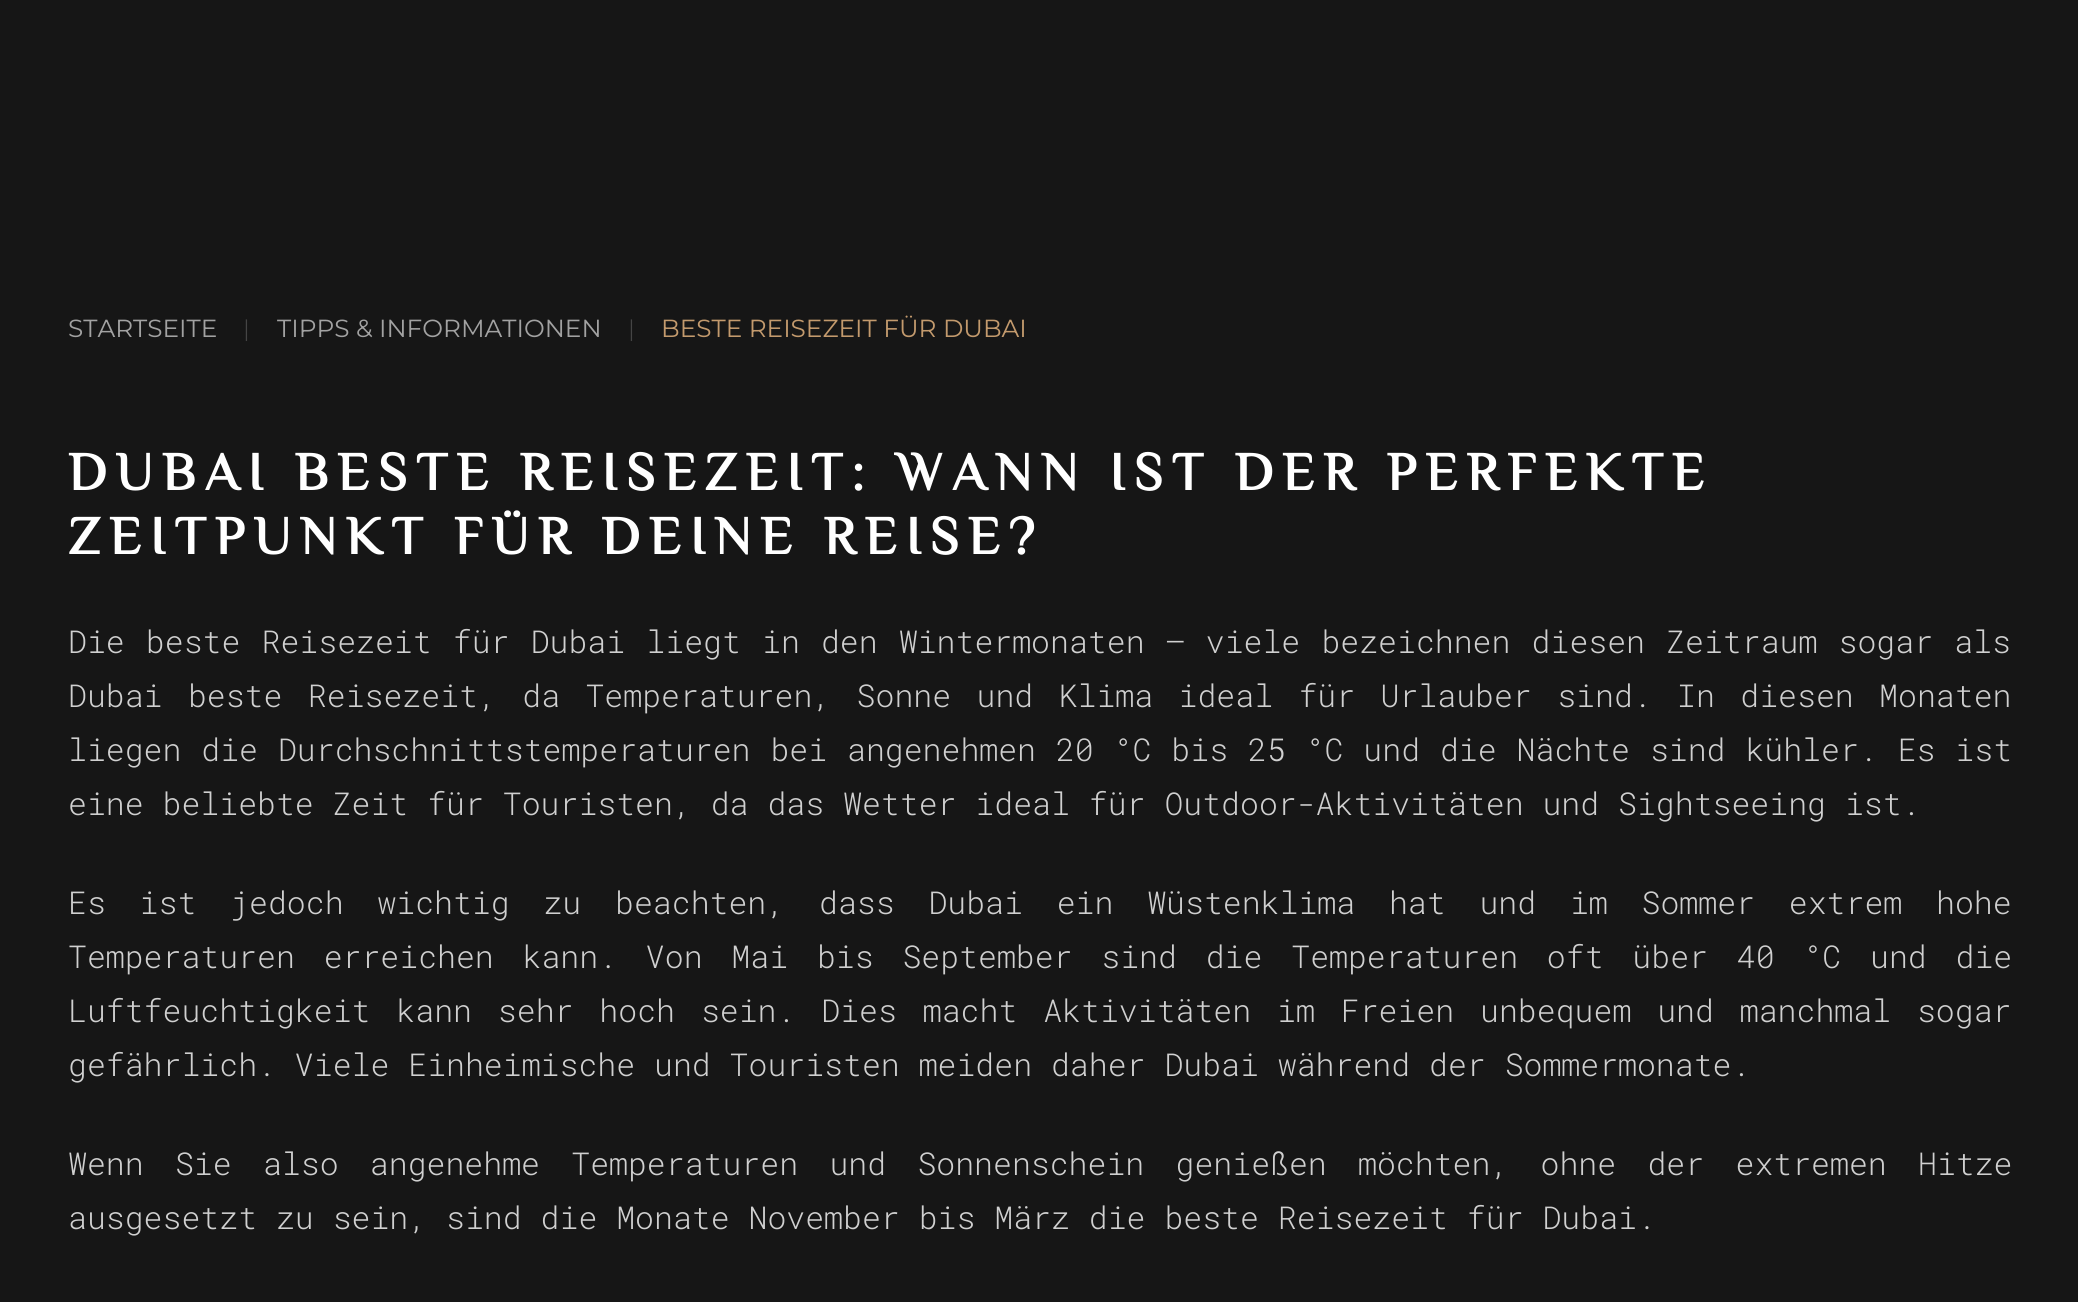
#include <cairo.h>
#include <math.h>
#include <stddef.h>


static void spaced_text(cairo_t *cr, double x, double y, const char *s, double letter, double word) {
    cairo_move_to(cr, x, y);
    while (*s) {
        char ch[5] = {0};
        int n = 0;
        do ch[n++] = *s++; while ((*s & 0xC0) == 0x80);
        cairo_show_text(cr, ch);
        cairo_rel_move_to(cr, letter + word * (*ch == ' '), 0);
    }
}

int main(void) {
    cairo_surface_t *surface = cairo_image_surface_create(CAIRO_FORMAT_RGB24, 2078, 1302);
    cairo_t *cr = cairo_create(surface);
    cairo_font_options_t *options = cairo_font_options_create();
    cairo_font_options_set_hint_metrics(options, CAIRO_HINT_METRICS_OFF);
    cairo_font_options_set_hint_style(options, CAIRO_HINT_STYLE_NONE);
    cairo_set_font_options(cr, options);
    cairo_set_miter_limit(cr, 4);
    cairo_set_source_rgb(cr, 0.086, 0.086, 0.086);
    cairo_paint(cr);
    cairo_select_font_face(cr, "Montserrat Thin", CAIRO_FONT_SLANT_NORMAL, CAIRO_FONT_WEIGHT_NORMAL);
    cairo_set_font_size(cr, 24.75);
    cairo_set_source_rgb(cr, 0.635, 0.635, 0.635);
    cairo_move_to(cr, 68, 337);
    cairo_show_text(cr, "STARTSEITE");
    cairo_select_font_face(cr, "Roboto Mono Light", CAIRO_FONT_SLANT_NORMAL, CAIRO_FONT_WEIGHT_NORMAL);
    cairo_set_source_rgb(cr, 0.271, 0.271, 0.271);
    cairo_move_to(cr, 239, 337);
    cairo_show_text(cr, "|");
    cairo_select_font_face(cr, "Montserrat Thin", CAIRO_FONT_SLANT_NORMAL, CAIRO_FONT_WEIGHT_NORMAL);
    cairo_set_source_rgb(cr, 0.635, 0.635, 0.635);
    cairo_move_to(cr, 277, 337);
    cairo_show_text(cr, "TIPPS & INFORMATIONEN");
    cairo_select_font_face(cr, "Roboto Mono Light", CAIRO_FONT_SLANT_NORMAL, CAIRO_FONT_WEIGHT_NORMAL);
    cairo_set_source_rgb(cr, 0.271, 0.271, 0.271);
    cairo_move_to(cr, 624, 337);
    cairo_show_text(cr, "|");
    cairo_select_font_face(cr, "Montserrat Thin", CAIRO_FONT_SLANT_NORMAL, CAIRO_FONT_WEIGHT_NORMAL);
    cairo_set_source_rgb(cr, 0.765, 0.604, 0.427);
    cairo_move_to(cr, 661, 337);
    cairo_show_text(cr, "BESTE REISEZEIT FÜR DUBAI");
    cairo_select_font_face(cr, "Philosopher", CAIRO_FONT_SLANT_NORMAL, CAIRO_FONT_WEIGHT_BOLD);
    cairo_set_font_size(cr, 54);
    cairo_set_source_rgb(cr, 1, 1, 1);
    spaced_text(cr, 68, 490, "DUBAI BESTE REISEZEIT: WANN IST DER PERFEKTE", 9, 0);
    spaced_text(cr, 68, 554, "ZEITPUNKT FÜR DEINE REISE?", 9, 0);
    cairo_select_font_face(cr, "Roboto Mono Light", CAIRO_FONT_SLANT_NORMAL, CAIRO_FONT_WEIGHT_NORMAL);
    cairo_set_font_size(cr, 31.5);
    cairo_set_source_rgb(cr, 0.816, 0.816, 0.816);
    spaced_text(cr, 68, 653, "Die beste Reisezeit für Dubai liegt in den Wintermonaten – viele bezeichnen diesen Zeitraum sogar als", 0, 2.25);
    spaced_text(cr, 68, 707, "Dubai beste Reisezeit, da Temperaturen, Sonne und Klima ideal für Urlauber sind. In diesen Monaten", 0, 6.5);
    spaced_text(cr, 68, 761, "liegen die Durchschnittstemperaturen bei angenehmen 20 °C bis 25 °C und die Nächte sind kühler. Es ist", 0, 1);
    cairo_move_to(cr, 68, 815);
    cairo_show_text(cr, "eine beliebte Zeit für Touristen, da das Wetter ideal für Outdoor-Aktivitäten und Sightseeing ist.");
    spaced_text(cr, 68, 914, "Es ist jedoch wichtig zu beachten, dass Dubai ein Wüstenklima hat und im Sommer extrem hohe", 0, 14.9);
    spaced_text(cr, 68, 968, "Temperaturen erreichen kann. Von Mai bis September sind die Temperaturen oft über 40 °C und die", 0, 9.9);
    spaced_text(cr, 68, 1022, "Luftfeuchtigkeit kann sehr hoch sein. Dies macht Aktivitäten im Freien unbequem und manchmal sogar", 0, 7);
    cairo_move_to(cr, 68, 1076);
    cairo_show_text(cr, "gefährlich. Viele Einheimische und Touristen meiden daher Dubai während der Sommermonate.");
    spaced_text(cr, 68, 1175, "Wenn Sie also angenehme Temperaturen und Sonnenschein genießen möchten, ohne der extremen Hitze", 0, 12.4);
    cairo_move_to(cr, 68, 1229);
    cairo_show_text(cr, "ausgesetzt zu sein, sind die Monate November bis März die beste Reisezeit für Dubai.");
    cairo_surface_write_to_png(surface, "page.png");
    cairo_font_options_destroy(options);
    cairo_destroy(cr);
    cairo_surface_destroy(surface);
    return 0;
}
